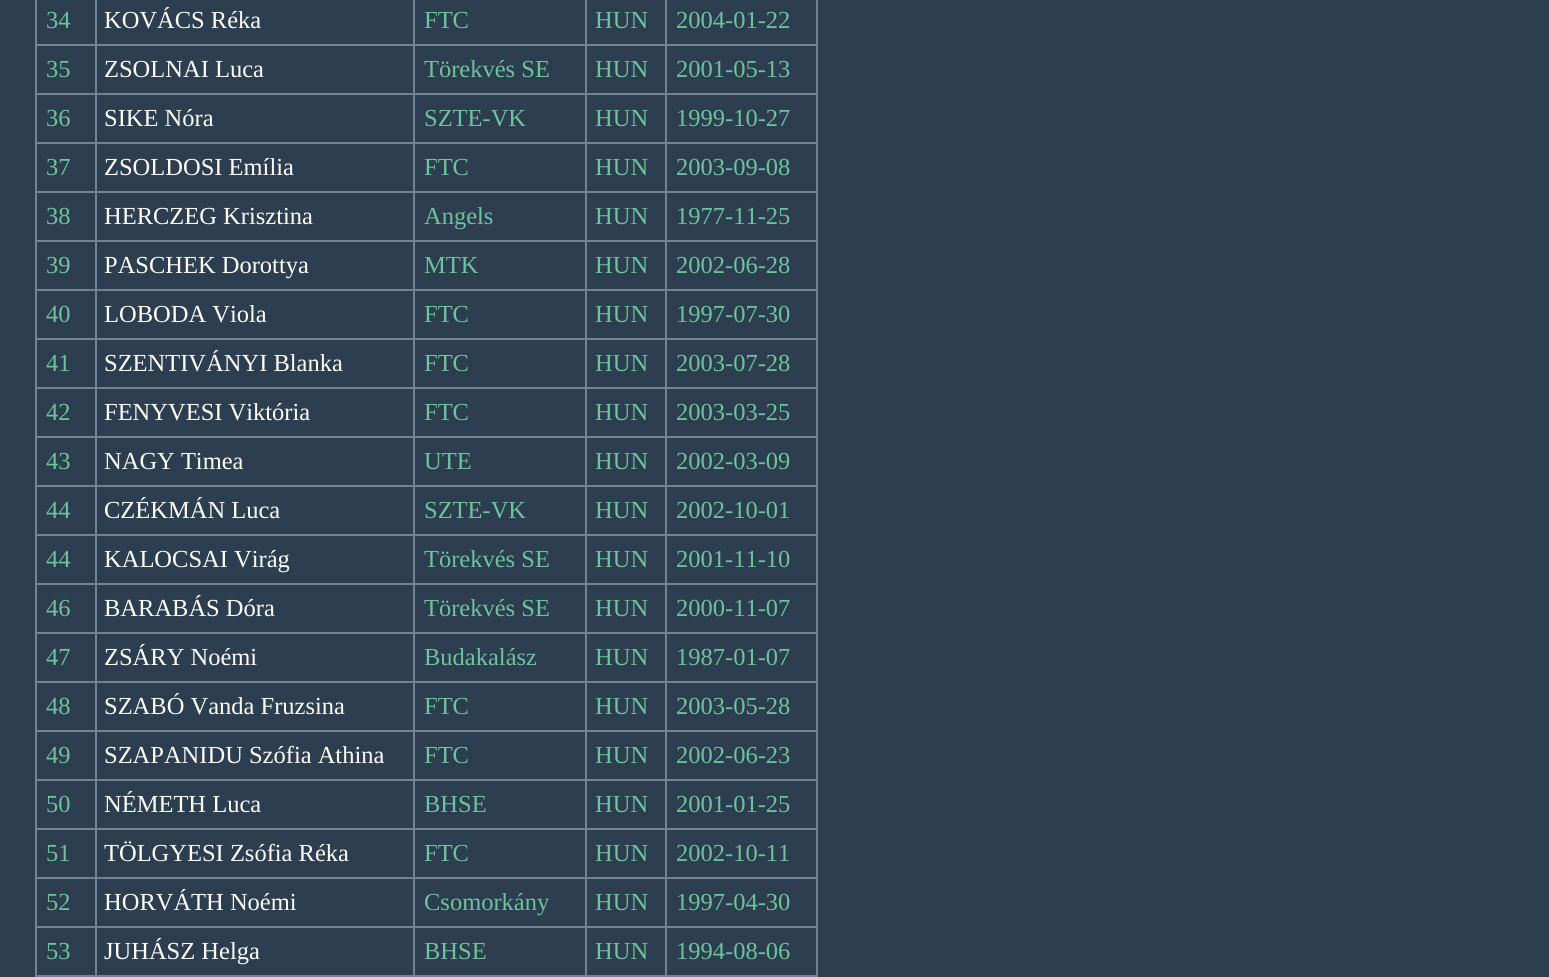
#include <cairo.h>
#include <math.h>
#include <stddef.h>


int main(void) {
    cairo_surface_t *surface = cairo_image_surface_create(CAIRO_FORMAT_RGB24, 1549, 977);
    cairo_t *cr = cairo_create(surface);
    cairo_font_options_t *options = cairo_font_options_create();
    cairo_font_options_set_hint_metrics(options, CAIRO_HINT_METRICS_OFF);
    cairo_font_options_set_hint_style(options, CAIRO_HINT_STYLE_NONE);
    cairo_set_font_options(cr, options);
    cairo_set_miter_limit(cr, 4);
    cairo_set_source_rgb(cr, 0.173, 0.243, 0.314);
    cairo_paint(cr);
    cairo_select_font_face(cr, "Liberation Serif", CAIRO_FONT_SLANT_NORMAL, CAIRO_FONT_WEIGHT_NORMAL);
    cairo_set_font_size(cr, 24.5);
    cairo_set_source_rgb(cr, 0.424, 0.769, 0.608);
    cairo_move_to(cr, 46, 28);
    cairo_show_text(cr, "34");
    cairo_set_source_rgb(cr, 0.443, 0.514, 0.588);
    cairo_rectangle(cr, 665, 44, 152, 2);
    cairo_fill(cr);
    cairo_rectangle(cr, 665, 93, 152, 2);
    cairo_fill(cr);
    cairo_rectangle(cr, 665, 142, 152, 2);
    cairo_fill(cr);
    cairo_rectangle(cr, 665, 191, 152, 2);
    cairo_fill(cr);
    cairo_rectangle(cr, 665, 240, 152, 2);
    cairo_fill(cr);
    cairo_rectangle(cr, 665, 289, 152, 2);
    cairo_fill(cr);
    cairo_rectangle(cr, 665, 338, 152, 2);
    cairo_fill(cr);
    cairo_rectangle(cr, 665, 387, 152, 2);
    cairo_fill(cr);
    cairo_rectangle(cr, 665, 436, 152, 2);
    cairo_fill(cr);
    cairo_rectangle(cr, 665, 485, 152, 2);
    cairo_fill(cr);
    cairo_rectangle(cr, 665, 534, 152, 2);
    cairo_fill(cr);
    cairo_rectangle(cr, 665, 583, 152, 2);
    cairo_fill(cr);
    cairo_rectangle(cr, 665, 632, 152, 2);
    cairo_fill(cr);
    cairo_rectangle(cr, 665, 681, 152, 2);
    cairo_fill(cr);
    cairo_rectangle(cr, 665, 730, 152, 2);
    cairo_fill(cr);
    cairo_rectangle(cr, 665, 779, 152, 2);
    cairo_fill(cr);
    cairo_rectangle(cr, 665, 828, 152, 2);
    cairo_fill(cr);
    cairo_rectangle(cr, 665, 877, 152, 2);
    cairo_fill(cr);
    cairo_rectangle(cr, 665, 926, 152, 2);
    cairo_fill(cr);
    cairo_rectangle(cr, 35, 975, 782, 2);
    cairo_fill(cr);
    cairo_rectangle(cr, 665, 926, 2, 51);
    cairo_fill(cr);
    cairo_rectangle(cr, 585, 926, 82, 2);
    cairo_fill(cr);
    cairo_rectangle(cr, 665, 877, 2, 51);
    cairo_fill(cr);
    cairo_rectangle(cr, 585, 877, 82, 2);
    cairo_fill(cr);
    cairo_rectangle(cr, 665, 828, 2, 51);
    cairo_fill(cr);
    cairo_rectangle(cr, 585, 828, 82, 2);
    cairo_fill(cr);
    cairo_rectangle(cr, 665, 779, 2, 51);
    cairo_fill(cr);
    cairo_rectangle(cr, 585, 779, 82, 2);
    cairo_fill(cr);
    cairo_rectangle(cr, 665, 730, 2, 51);
    cairo_fill(cr);
    cairo_rectangle(cr, 585, 730, 82, 2);
    cairo_fill(cr);
    cairo_rectangle(cr, 665, 681, 2, 51);
    cairo_fill(cr);
    cairo_rectangle(cr, 585, 681, 82, 2);
    cairo_fill(cr);
    cairo_rectangle(cr, 665, 632, 2, 51);
    cairo_fill(cr);
    cairo_rectangle(cr, 585, 632, 82, 2);
    cairo_fill(cr);
    cairo_rectangle(cr, 665, 583, 2, 51);
    cairo_fill(cr);
    cairo_rectangle(cr, 585, 583, 82, 2);
    cairo_fill(cr);
    cairo_rectangle(cr, 665, 534, 2, 51);
    cairo_fill(cr);
    cairo_rectangle(cr, 585, 534, 82, 2);
    cairo_fill(cr);
    cairo_rectangle(cr, 665, 485, 2, 51);
    cairo_fill(cr);
    cairo_rectangle(cr, 585, 485, 82, 2);
    cairo_fill(cr);
    cairo_rectangle(cr, 665, 436, 2, 51);
    cairo_fill(cr);
    cairo_rectangle(cr, 585, 436, 82, 2);
    cairo_fill(cr);
    cairo_rectangle(cr, 665, 387, 2, 51);
    cairo_fill(cr);
    cairo_rectangle(cr, 585, 387, 82, 2);
    cairo_fill(cr);
    cairo_rectangle(cr, 665, 338, 2, 51);
    cairo_fill(cr);
    cairo_rectangle(cr, 585, 338, 82, 2);
    cairo_fill(cr);
    cairo_rectangle(cr, 665, 289, 2, 51);
    cairo_fill(cr);
    cairo_rectangle(cr, 585, 289, 82, 2);
    cairo_fill(cr);
    cairo_rectangle(cr, 665, 240, 2, 51);
    cairo_fill(cr);
    cairo_rectangle(cr, 585, 240, 82, 2);
    cairo_fill(cr);
    cairo_rectangle(cr, 665, 191, 2, 51);
    cairo_fill(cr);
    cairo_rectangle(cr, 585, 191, 82, 2);
    cairo_fill(cr);
    cairo_rectangle(cr, 665, 142, 2, 51);
    cairo_fill(cr);
    cairo_rectangle(cr, 585, 142, 82, 2);
    cairo_fill(cr);
    cairo_rectangle(cr, 665, 93, 2, 51);
    cairo_fill(cr);
    cairo_rectangle(cr, 585, 93, 82, 2);
    cairo_fill(cr);
    cairo_rectangle(cr, 665, 44, 2, 51);
    cairo_fill(cr);
    cairo_rectangle(cr, 585, 44, 82, 2);
    cairo_fill(cr);
    cairo_rectangle(cr, 585, 926, 2, 51);
    cairo_fill(cr);
    cairo_rectangle(cr, 413, 926, 173, 2);
    cairo_fill(cr);
    cairo_rectangle(cr, 585, 877, 2, 51);
    cairo_fill(cr);
    cairo_rectangle(cr, 413, 877, 173, 2);
    cairo_fill(cr);
    cairo_rectangle(cr, 585, 828, 2, 51);
    cairo_fill(cr);
    cairo_rectangle(cr, 413, 828, 173, 2);
    cairo_fill(cr);
    cairo_rectangle(cr, 585, 779, 2, 51);
    cairo_fill(cr);
    cairo_rectangle(cr, 413, 779, 173, 2);
    cairo_fill(cr);
    cairo_rectangle(cr, 585, 730, 2, 51);
    cairo_fill(cr);
    cairo_rectangle(cr, 413, 730, 173, 2);
    cairo_fill(cr);
    cairo_rectangle(cr, 585, 681, 2, 51);
    cairo_fill(cr);
    cairo_rectangle(cr, 413, 681, 173, 2);
    cairo_fill(cr);
    cairo_rectangle(cr, 585, 632, 2, 51);
    cairo_fill(cr);
    cairo_rectangle(cr, 413, 632, 173, 2);
    cairo_fill(cr);
    cairo_rectangle(cr, 585, 583, 2, 51);
    cairo_fill(cr);
    cairo_rectangle(cr, 413, 583, 173, 2);
    cairo_fill(cr);
    cairo_rectangle(cr, 585, 534, 2, 51);
    cairo_fill(cr);
    cairo_rectangle(cr, 413, 534, 173, 2);
    cairo_fill(cr);
    cairo_rectangle(cr, 585, 485, 2, 51);
    cairo_fill(cr);
    cairo_rectangle(cr, 413, 485, 173, 2);
    cairo_fill(cr);
    cairo_rectangle(cr, 585, 436, 2, 51);
    cairo_fill(cr);
    cairo_rectangle(cr, 413, 436, 173, 2);
    cairo_fill(cr);
    cairo_rectangle(cr, 585, 387, 2, 51);
    cairo_fill(cr);
    cairo_rectangle(cr, 413, 387, 173, 2);
    cairo_fill(cr);
    cairo_rectangle(cr, 585, 338, 2, 51);
    cairo_fill(cr);
    cairo_rectangle(cr, 413, 338, 173, 2);
    cairo_fill(cr);
    cairo_rectangle(cr, 585, 289, 2, 51);
    cairo_fill(cr);
    cairo_rectangle(cr, 413, 289, 173, 2);
    cairo_fill(cr);
    cairo_rectangle(cr, 585, 240, 2, 51);
    cairo_fill(cr);
    cairo_rectangle(cr, 413, 240, 173, 2);
    cairo_fill(cr);
    cairo_rectangle(cr, 585, 191, 2, 51);
    cairo_fill(cr);
    cairo_rectangle(cr, 413, 191, 173, 2);
    cairo_fill(cr);
    cairo_rectangle(cr, 585, 142, 2, 51);
    cairo_fill(cr);
    cairo_rectangle(cr, 413, 142, 173, 2);
    cairo_fill(cr);
    cairo_rectangle(cr, 585, 93, 2, 51);
    cairo_fill(cr);
    cairo_rectangle(cr, 413, 93, 173, 2);
    cairo_fill(cr);
    cairo_rectangle(cr, 585, 44, 2, 51);
    cairo_fill(cr);
    cairo_rectangle(cr, 413, 44, 173, 2);
    cairo_fill(cr);
    cairo_rectangle(cr, 413, 926, 2, 51);
    cairo_fill(cr);
    cairo_rectangle(cr, 95, 926, 320, 2);
    cairo_fill(cr);
    cairo_rectangle(cr, 413, 877, 2, 51);
    cairo_fill(cr);
    cairo_rectangle(cr, 95, 877, 320, 2);
    cairo_fill(cr);
    cairo_rectangle(cr, 413, 828, 2, 51);
    cairo_fill(cr);
    cairo_rectangle(cr, 95, 828, 320, 2);
    cairo_fill(cr);
    cairo_rectangle(cr, 413, 779, 2, 51);
    cairo_fill(cr);
    cairo_rectangle(cr, 95, 779, 320, 2);
    cairo_fill(cr);
    cairo_rectangle(cr, 413, 730, 2, 51);
    cairo_fill(cr);
    cairo_rectangle(cr, 95, 730, 320, 2);
    cairo_fill(cr);
    cairo_rectangle(cr, 413, 681, 2, 51);
    cairo_fill(cr);
    cairo_rectangle(cr, 95, 681, 320, 2);
    cairo_fill(cr);
    cairo_rectangle(cr, 413, 632, 2, 51);
    cairo_fill(cr);
    cairo_rectangle(cr, 95, 632, 320, 2);
    cairo_fill(cr);
    cairo_rectangle(cr, 413, 583, 2, 51);
    cairo_fill(cr);
    cairo_rectangle(cr, 95, 583, 320, 2);
    cairo_fill(cr);
    cairo_rectangle(cr, 413, 534, 2, 51);
    cairo_fill(cr);
    cairo_rectangle(cr, 95, 534, 320, 2);
    cairo_fill(cr);
    cairo_rectangle(cr, 413, 485, 2, 51);
    cairo_fill(cr);
    cairo_rectangle(cr, 95, 485, 320, 2);
    cairo_fill(cr);
    cairo_rectangle(cr, 413, 436, 2, 51);
    cairo_fill(cr);
    cairo_rectangle(cr, 95, 436, 320, 2);
    cairo_fill(cr);
    cairo_rectangle(cr, 413, 387, 2, 51);
    cairo_fill(cr);
    cairo_rectangle(cr, 95, 387, 320, 2);
    cairo_fill(cr);
    cairo_rectangle(cr, 413, 338, 2, 51);
    cairo_fill(cr);
    cairo_rectangle(cr, 95, 338, 320, 2);
    cairo_fill(cr);
    cairo_rectangle(cr, 413, 289, 2, 51);
    cairo_fill(cr);
    cairo_rectangle(cr, 95, 289, 320, 2);
    cairo_fill(cr);
    cairo_rectangle(cr, 413, 240, 2, 51);
    cairo_fill(cr);
    cairo_rectangle(cr, 95, 240, 320, 2);
    cairo_fill(cr);
    cairo_rectangle(cr, 413, 191, 2, 51);
    cairo_fill(cr);
    cairo_rectangle(cr, 95, 191, 320, 2);
    cairo_fill(cr);
    cairo_rectangle(cr, 413, 142, 2, 51);
    cairo_fill(cr);
    cairo_rectangle(cr, 95, 142, 320, 2);
    cairo_fill(cr);
    cairo_rectangle(cr, 413, 93, 2, 51);
    cairo_fill(cr);
    cairo_rectangle(cr, 95, 93, 320, 2);
    cairo_fill(cr);
    cairo_rectangle(cr, 413, 44, 2, 51);
    cairo_fill(cr);
    cairo_rectangle(cr, 95, 44, 320, 2);
    cairo_fill(cr);
    cairo_rectangle(cr, 95, 926, 2, 51);
    cairo_fill(cr);
    cairo_rectangle(cr, 35, 926, 61, 2);
    cairo_fill(cr);
    cairo_rectangle(cr, 95, 877, 2, 51);
    cairo_fill(cr);
    cairo_rectangle(cr, 35, 877, 61, 2);
    cairo_fill(cr);
    cairo_rectangle(cr, 95, 828, 2, 51);
    cairo_fill(cr);
    cairo_rectangle(cr, 35, 828, 61, 2);
    cairo_fill(cr);
    cairo_rectangle(cr, 95, 779, 2, 51);
    cairo_fill(cr);
    cairo_rectangle(cr, 35, 779, 61, 2);
    cairo_fill(cr);
    cairo_rectangle(cr, 95, 730, 2, 51);
    cairo_fill(cr);
    cairo_rectangle(cr, 35, 730, 61, 2);
    cairo_fill(cr);
    cairo_rectangle(cr, 95, 681, 2, 51);
    cairo_fill(cr);
    cairo_rectangle(cr, 35, 681, 61, 2);
    cairo_fill(cr);
    cairo_rectangle(cr, 95, 632, 2, 51);
    cairo_fill(cr);
    cairo_rectangle(cr, 35, 632, 61, 2);
    cairo_fill(cr);
    cairo_rectangle(cr, 95, 583, 2, 51);
    cairo_fill(cr);
    cairo_rectangle(cr, 35, 583, 61, 2);
    cairo_fill(cr);
    cairo_rectangle(cr, 95, 534, 2, 51);
    cairo_fill(cr);
    cairo_rectangle(cr, 35, 534, 61, 2);
    cairo_fill(cr);
    cairo_rectangle(cr, 95, 485, 2, 51);
    cairo_fill(cr);
    cairo_rectangle(cr, 35, 485, 61, 2);
    cairo_fill(cr);
    cairo_rectangle(cr, 95, 436, 2, 51);
    cairo_fill(cr);
    cairo_rectangle(cr, 35, 436, 61, 2);
    cairo_fill(cr);
    cairo_rectangle(cr, 95, 387, 2, 51);
    cairo_fill(cr);
    cairo_rectangle(cr, 35, 387, 61, 2);
    cairo_fill(cr);
    cairo_rectangle(cr, 95, 338, 2, 51);
    cairo_fill(cr);
    cairo_rectangle(cr, 35, 338, 61, 2);
    cairo_fill(cr);
    cairo_rectangle(cr, 95, 289, 2, 51);
    cairo_fill(cr);
    cairo_rectangle(cr, 35, 289, 61, 2);
    cairo_fill(cr);
    cairo_rectangle(cr, 95, 240, 2, 51);
    cairo_fill(cr);
    cairo_rectangle(cr, 35, 240, 61, 2);
    cairo_fill(cr);
    cairo_rectangle(cr, 95, 191, 2, 51);
    cairo_fill(cr);
    cairo_rectangle(cr, 35, 191, 61, 2);
    cairo_fill(cr);
    cairo_rectangle(cr, 95, 142, 2, 51);
    cairo_fill(cr);
    cairo_rectangle(cr, 35, 142, 61, 2);
    cairo_fill(cr);
    cairo_rectangle(cr, 95, 93, 2, 51);
    cairo_fill(cr);
    cairo_rectangle(cr, 35, 93, 61, 2);
    cairo_fill(cr);
    cairo_rectangle(cr, 95, 44, 2, 51);
    cairo_fill(cr);
    cairo_rectangle(cr, 35, 44, 61, 2);
    cairo_fill(cr);
    cairo_rectangle(cr, 95, 0, 2, 46);
    cairo_fill(cr);
    cairo_set_source_rgb(cr, 1, 1, 1);
    cairo_move_to(cr, 104, 28);
    cairo_show_text(cr, "KOVÁCS Réka");
    cairo_set_source_rgb(cr, 0.443, 0.514, 0.588);
    cairo_rectangle(cr, 413, 0, 2, 46);
    cairo_fill(cr);
    cairo_set_source_rgb(cr, 0.424, 0.769, 0.608);
    cairo_move_to(cr, 424, 28);
    cairo_show_text(cr, "FTC");
    cairo_set_source_rgb(cr, 0.443, 0.514, 0.588);
    cairo_rectangle(cr, 585, 0, 2, 46);
    cairo_fill(cr);
    cairo_set_source_rgb(cr, 0.424, 0.769, 0.608);
    cairo_move_to(cr, 595, 28);
    cairo_show_text(cr, "HUN");
    cairo_set_source_rgb(cr, 0.443, 0.514, 0.588);
    cairo_rectangle(cr, 665, 0, 2, 46);
    cairo_fill(cr);
    cairo_set_source_rgb(cr, 0.424, 0.769, 0.608);
    cairo_move_to(cr, 676, 28);
    cairo_show_text(cr, "2004-01-22");
    cairo_set_source_rgb(cr, 0.443, 0.514, 0.588);
    cairo_rectangle(cr, 35, 926, 2, 51);
    cairo_fill(cr);
    cairo_rectangle(cr, 35, 877, 2, 51);
    cairo_fill(cr);
    cairo_rectangle(cr, 35, 828, 2, 51);
    cairo_fill(cr);
    cairo_rectangle(cr, 35, 779, 2, 51);
    cairo_fill(cr);
    cairo_rectangle(cr, 35, 730, 2, 51);
    cairo_fill(cr);
    cairo_rectangle(cr, 35, 681, 2, 51);
    cairo_fill(cr);
    cairo_rectangle(cr, 35, 632, 2, 51);
    cairo_fill(cr);
    cairo_rectangle(cr, 35, 583, 2, 51);
    cairo_fill(cr);
    cairo_rectangle(cr, 35, 534, 2, 51);
    cairo_fill(cr);
    cairo_rectangle(cr, 35, 485, 2, 51);
    cairo_fill(cr);
    cairo_rectangle(cr, 35, 436, 2, 51);
    cairo_fill(cr);
    cairo_rectangle(cr, 35, 387, 2, 51);
    cairo_fill(cr);
    cairo_rectangle(cr, 35, 338, 2, 51);
    cairo_fill(cr);
    cairo_rectangle(cr, 35, 289, 2, 51);
    cairo_fill(cr);
    cairo_rectangle(cr, 35, 240, 2, 51);
    cairo_fill(cr);
    cairo_rectangle(cr, 35, 191, 2, 51);
    cairo_fill(cr);
    cairo_rectangle(cr, 35, 142, 2, 51);
    cairo_fill(cr);
    cairo_rectangle(cr, 35, 93, 2, 51);
    cairo_fill(cr);
    cairo_rectangle(cr, 35, 0, 2, 95);
    cairo_fill(cr);
    cairo_set_source_rgb(cr, 0.424, 0.769, 0.608);
    cairo_move_to(cr, 46, 77);
    cairo_show_text(cr, "35");
    cairo_set_source_rgb(cr, 1, 1, 1);
    cairo_move_to(cr, 104, 77);
    cairo_show_text(cr, "ZSOLNAI Luca");
    cairo_set_source_rgb(cr, 0.424, 0.769, 0.608);
    cairo_move_to(cr, 424, 77);
    cairo_show_text(cr, "Törekvés SE");
    cairo_move_to(cr, 595, 77);
    cairo_show_text(cr, "HUN");
    cairo_set_source_rgb(cr, 0.443, 0.514, 0.588);
    cairo_rectangle(cr, 816, 926, 2, 51);
    cairo_fill(cr);
    cairo_rectangle(cr, 816, 877, 2, 51);
    cairo_fill(cr);
    cairo_rectangle(cr, 816, 828, 2, 51);
    cairo_fill(cr);
    cairo_rectangle(cr, 816, 779, 2, 51);
    cairo_fill(cr);
    cairo_rectangle(cr, 816, 730, 2, 51);
    cairo_fill(cr);
    cairo_rectangle(cr, 816, 681, 2, 51);
    cairo_fill(cr);
    cairo_rectangle(cr, 816, 632, 2, 51);
    cairo_fill(cr);
    cairo_rectangle(cr, 816, 583, 2, 51);
    cairo_fill(cr);
    cairo_rectangle(cr, 816, 534, 2, 51);
    cairo_fill(cr);
    cairo_rectangle(cr, 816, 485, 2, 51);
    cairo_fill(cr);
    cairo_rectangle(cr, 816, 436, 2, 51);
    cairo_fill(cr);
    cairo_rectangle(cr, 816, 387, 2, 51);
    cairo_fill(cr);
    cairo_rectangle(cr, 816, 338, 2, 51);
    cairo_fill(cr);
    cairo_rectangle(cr, 816, 289, 2, 51);
    cairo_fill(cr);
    cairo_rectangle(cr, 816, 240, 2, 51);
    cairo_fill(cr);
    cairo_rectangle(cr, 816, 191, 2, 51);
    cairo_fill(cr);
    cairo_rectangle(cr, 816, 142, 2, 51);
    cairo_fill(cr);
    cairo_rectangle(cr, 816, 93, 2, 51);
    cairo_fill(cr);
    cairo_rectangle(cr, 816, 0, 2, 95);
    cairo_fill(cr);
    cairo_set_source_rgb(cr, 0.424, 0.769, 0.608);
    cairo_move_to(cr, 676, 77);
    cairo_show_text(cr, "2001-05-13");
    cairo_move_to(cr, 46, 126);
    cairo_show_text(cr, "36");
    cairo_set_source_rgb(cr, 1, 1, 1);
    cairo_move_to(cr, 104, 126);
    cairo_show_text(cr, "SIKE Nóra");
    cairo_set_source_rgb(cr, 0.424, 0.769, 0.608);
    cairo_move_to(cr, 424, 126);
    cairo_show_text(cr, "SZTE-VK");
    cairo_move_to(cr, 595, 126);
    cairo_show_text(cr, "HUN");
    cairo_move_to(cr, 676, 126);
    cairo_show_text(cr, "1999-10-27");
    cairo_move_to(cr, 46, 175);
    cairo_show_text(cr, "37");
    cairo_set_source_rgb(cr, 1, 1, 1);
    cairo_move_to(cr, 104, 175);
    cairo_show_text(cr, "ZSOLDOSI Emília");
    cairo_set_source_rgb(cr, 0.424, 0.769, 0.608);
    cairo_move_to(cr, 424, 175);
    cairo_show_text(cr, "FTC");
    cairo_move_to(cr, 595, 175);
    cairo_show_text(cr, "HUN");
    cairo_move_to(cr, 676, 175);
    cairo_show_text(cr, "2003-09-08");
    cairo_move_to(cr, 46, 224);
    cairo_show_text(cr, "38");
    cairo_set_source_rgb(cr, 1, 1, 1);
    cairo_move_to(cr, 104, 224);
    cairo_show_text(cr, "HERCZEG Krisztina");
    cairo_set_source_rgb(cr, 0.424, 0.769, 0.608);
    cairo_move_to(cr, 424, 224);
    cairo_show_text(cr, "Angels");
    cairo_move_to(cr, 595, 224);
    cairo_show_text(cr, "HUN");
    cairo_move_to(cr, 676, 224);
    cairo_show_text(cr, "1977-11-25");
    cairo_move_to(cr, 46, 273);
    cairo_show_text(cr, "39");
    cairo_set_source_rgb(cr, 1, 1, 1);
    cairo_move_to(cr, 104, 273);
    cairo_show_text(cr, "PASCHEK Dorottya");
    cairo_set_source_rgb(cr, 0.424, 0.769, 0.608);
    cairo_move_to(cr, 424, 273);
    cairo_show_text(cr, "MTK");
    cairo_move_to(cr, 595, 273);
    cairo_show_text(cr, "HUN");
    cairo_move_to(cr, 676, 273);
    cairo_show_text(cr, "2002-06-28");
    cairo_move_to(cr, 46, 322);
    cairo_show_text(cr, "40");
    cairo_set_source_rgb(cr, 1, 1, 1);
    cairo_move_to(cr, 104, 322);
    cairo_show_text(cr, "LOBODA Viola");
    cairo_set_source_rgb(cr, 0.424, 0.769, 0.608);
    cairo_move_to(cr, 424, 322);
    cairo_show_text(cr, "FTC");
    cairo_move_to(cr, 595, 322);
    cairo_show_text(cr, "HUN");
    cairo_move_to(cr, 676, 322);
    cairo_show_text(cr, "1997-07-30");
    cairo_move_to(cr, 46, 371);
    cairo_show_text(cr, "41");
    cairo_set_source_rgb(cr, 1, 1, 1);
    cairo_move_to(cr, 104, 371);
    cairo_show_text(cr, "SZENTIVÁNYI Blanka");
    cairo_set_source_rgb(cr, 0.424, 0.769, 0.608);
    cairo_move_to(cr, 424, 371);
    cairo_show_text(cr, "FTC");
    cairo_move_to(cr, 595, 371);
    cairo_show_text(cr, "HUN");
    cairo_move_to(cr, 676, 371);
    cairo_show_text(cr, "2003-07-28");
    cairo_move_to(cr, 46, 420);
    cairo_show_text(cr, "42");
    cairo_set_source_rgb(cr, 1, 1, 1);
    cairo_move_to(cr, 104, 420);
    cairo_show_text(cr, "FENYVESI Viktória");
    cairo_set_source_rgb(cr, 0.424, 0.769, 0.608);
    cairo_move_to(cr, 424, 420);
    cairo_show_text(cr, "FTC");
    cairo_move_to(cr, 595, 420);
    cairo_show_text(cr, "HUN");
    cairo_move_to(cr, 676, 420);
    cairo_show_text(cr, "2003-03-25");
    cairo_move_to(cr, 46, 469);
    cairo_show_text(cr, "43");
    cairo_set_source_rgb(cr, 1, 1, 1);
    cairo_move_to(cr, 104, 469);
    cairo_show_text(cr, "NAGY Timea");
    cairo_set_source_rgb(cr, 0.424, 0.769, 0.608);
    cairo_move_to(cr, 424, 469);
    cairo_show_text(cr, "UTE");
    cairo_move_to(cr, 595, 469);
    cairo_show_text(cr, "HUN");
    cairo_move_to(cr, 676, 469);
    cairo_show_text(cr, "2002-03-09");
    cairo_move_to(cr, 46, 518);
    cairo_show_text(cr, "44");
    cairo_set_source_rgb(cr, 1, 1, 1);
    cairo_move_to(cr, 104, 518);
    cairo_show_text(cr, "CZÉKMÁN Luca");
    cairo_set_source_rgb(cr, 0.424, 0.769, 0.608);
    cairo_move_to(cr, 424, 518);
    cairo_show_text(cr, "SZTE-VK");
    cairo_move_to(cr, 595, 518);
    cairo_show_text(cr, "HUN");
    cairo_move_to(cr, 676, 518);
    cairo_show_text(cr, "2002-10-01");
    cairo_move_to(cr, 46, 567);
    cairo_show_text(cr, "44");
    cairo_set_source_rgb(cr, 1, 1, 1);
    cairo_move_to(cr, 104, 567);
    cairo_show_text(cr, "KALOCSAI Virág");
    cairo_set_source_rgb(cr, 0.424, 0.769, 0.608);
    cairo_move_to(cr, 424, 567);
    cairo_show_text(cr, "Törekvés SE");
    cairo_move_to(cr, 595, 567);
    cairo_show_text(cr, "HUN");
    cairo_move_to(cr, 676, 567);
    cairo_show_text(cr, "2001-11-10");
    cairo_move_to(cr, 46, 616);
    cairo_show_text(cr, "46");
    cairo_set_source_rgb(cr, 1, 1, 1);
    cairo_move_to(cr, 104, 616);
    cairo_show_text(cr, "BARABÁS Dóra");
    cairo_set_source_rgb(cr, 0.424, 0.769, 0.608);
    cairo_move_to(cr, 424, 616);
    cairo_show_text(cr, "Törekvés SE");
    cairo_move_to(cr, 595, 616);
    cairo_show_text(cr, "HUN");
    cairo_move_to(cr, 676, 616);
    cairo_show_text(cr, "2000-11-07");
    cairo_move_to(cr, 46, 665);
    cairo_show_text(cr, "47");
    cairo_set_source_rgb(cr, 1, 1, 1);
    cairo_move_to(cr, 104, 665);
    cairo_show_text(cr, "ZSÁRY Noémi");
    cairo_set_source_rgb(cr, 0.424, 0.769, 0.608);
    cairo_move_to(cr, 424, 665);
    cairo_show_text(cr, "Budakalász");
    cairo_move_to(cr, 595, 665);
    cairo_show_text(cr, "HUN");
    cairo_move_to(cr, 676, 665);
    cairo_show_text(cr, "1987-01-07");
    cairo_move_to(cr, 46, 714);
    cairo_show_text(cr, "48");
    cairo_set_source_rgb(cr, 1, 1, 1);
    cairo_move_to(cr, 104, 714);
    cairo_show_text(cr, "SZABÓ Vanda Fruzsina");
    cairo_set_source_rgb(cr, 0.424, 0.769, 0.608);
    cairo_move_to(cr, 424, 714);
    cairo_show_text(cr, "FTC");
    cairo_move_to(cr, 595, 714);
    cairo_show_text(cr, "HUN");
    cairo_move_to(cr, 676, 714);
    cairo_show_text(cr, "2003-05-28");
    cairo_move_to(cr, 46, 763);
    cairo_show_text(cr, "49");
    cairo_set_source_rgb(cr, 1, 1, 1);
    cairo_move_to(cr, 104, 763);
    cairo_show_text(cr, "SZAPANIDU Szófia Athina");
    cairo_set_source_rgb(cr, 0.424, 0.769, 0.608);
    cairo_move_to(cr, 424, 763);
    cairo_show_text(cr, "FTC");
    cairo_move_to(cr, 595, 763);
    cairo_show_text(cr, "HUN");
    cairo_move_to(cr, 676, 763);
    cairo_show_text(cr, "2002-06-23");
    cairo_move_to(cr, 46, 812);
    cairo_show_text(cr, "50");
    cairo_set_source_rgb(cr, 1, 1, 1);
    cairo_move_to(cr, 104, 812);
    cairo_show_text(cr, "NÉMETH Luca");
    cairo_set_source_rgb(cr, 0.424, 0.769, 0.608);
    cairo_move_to(cr, 424, 812);
    cairo_show_text(cr, "BHSE");
    cairo_move_to(cr, 595, 812);
    cairo_show_text(cr, "HUN");
    cairo_move_to(cr, 676, 812);
    cairo_show_text(cr, "2001-01-25");
    cairo_move_to(cr, 46, 861);
    cairo_show_text(cr, "51");
    cairo_set_source_rgb(cr, 1, 1, 1);
    cairo_move_to(cr, 104, 861);
    cairo_show_text(cr, "TÖLGYESI Zsófia Réka");
    cairo_set_source_rgb(cr, 0.424, 0.769, 0.608);
    cairo_move_to(cr, 424, 861);
    cairo_show_text(cr, "FTC");
    cairo_move_to(cr, 595, 861);
    cairo_show_text(cr, "HUN");
    cairo_move_to(cr, 676, 861);
    cairo_show_text(cr, "2002-10-11");
    cairo_move_to(cr, 46, 910);
    cairo_show_text(cr, "52");
    cairo_set_source_rgb(cr, 1, 1, 1);
    cairo_move_to(cr, 104, 910);
    cairo_show_text(cr, "HORVÁTH Noémi");
    cairo_set_source_rgb(cr, 0.424, 0.769, 0.608);
    cairo_move_to(cr, 424, 910);
    cairo_show_text(cr, "Csomorkány");
    cairo_move_to(cr, 595, 910);
    cairo_show_text(cr, "HUN");
    cairo_move_to(cr, 676, 910);
    cairo_show_text(cr, "1997-04-30");
    cairo_move_to(cr, 46, 959);
    cairo_show_text(cr, "53");
    cairo_set_source_rgb(cr, 1, 1, 1);
    cairo_move_to(cr, 104, 959);
    cairo_show_text(cr, "JUHÁSZ Helga");
    cairo_set_source_rgb(cr, 0.424, 0.769, 0.608);
    cairo_move_to(cr, 424, 959);
    cairo_show_text(cr, "BHSE");
    cairo_move_to(cr, 595, 959);
    cairo_show_text(cr, "HUN");
    cairo_move_to(cr, 676, 959);
    cairo_show_text(cr, "1994-08-06");
    cairo_surface_write_to_png(surface, "page.png");
    cairo_font_options_destroy(options);
    cairo_destroy(cr);
    cairo_surface_destroy(surface);
    return 0;
}
